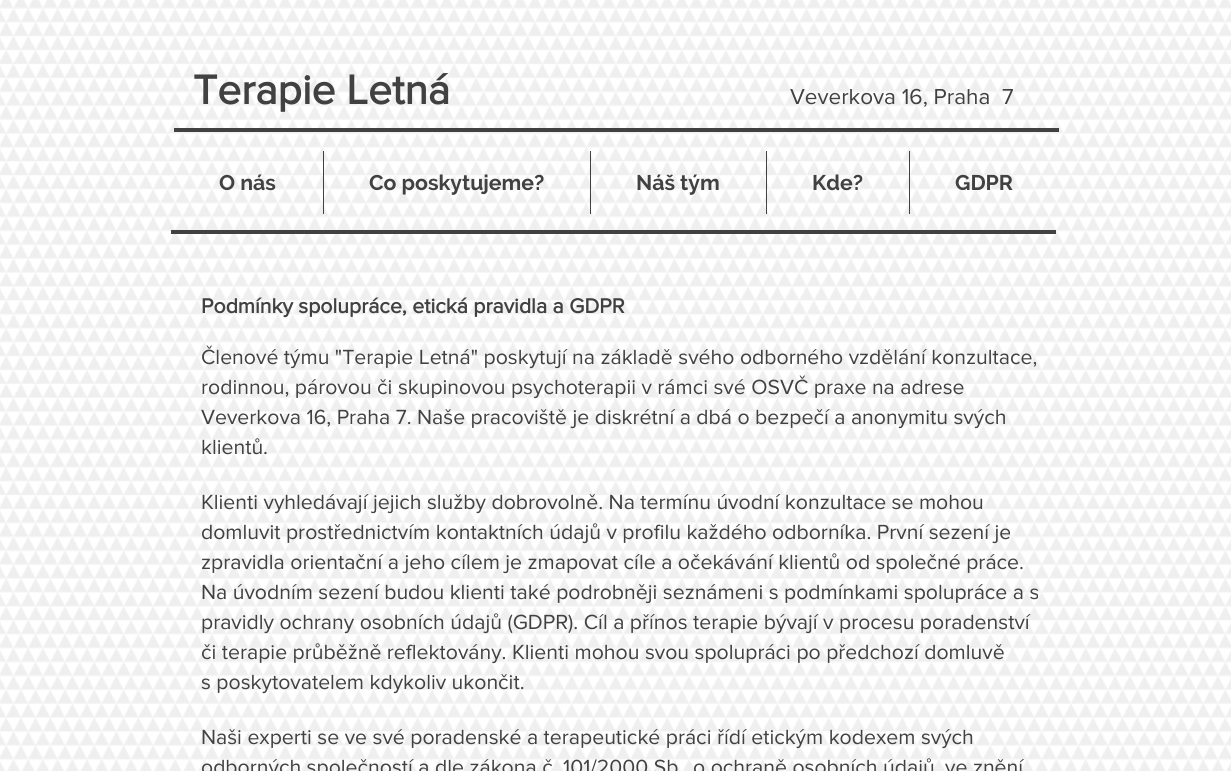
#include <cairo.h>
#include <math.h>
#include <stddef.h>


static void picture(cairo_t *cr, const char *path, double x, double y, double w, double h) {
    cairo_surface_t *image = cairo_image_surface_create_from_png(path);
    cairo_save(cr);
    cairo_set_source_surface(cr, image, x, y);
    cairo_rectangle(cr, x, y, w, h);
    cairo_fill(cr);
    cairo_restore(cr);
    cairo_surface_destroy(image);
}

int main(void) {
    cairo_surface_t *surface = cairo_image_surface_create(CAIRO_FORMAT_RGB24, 1231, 771);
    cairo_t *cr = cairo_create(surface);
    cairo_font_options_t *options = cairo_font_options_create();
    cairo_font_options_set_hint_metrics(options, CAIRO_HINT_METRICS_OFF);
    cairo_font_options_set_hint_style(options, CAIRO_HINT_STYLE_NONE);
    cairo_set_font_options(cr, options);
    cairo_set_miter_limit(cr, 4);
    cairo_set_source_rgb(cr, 1, 1, 1);
    cairo_paint(cr);
    picture(cr, "img1.png", 0, 0, 1231, 771);
    cairo_select_font_face(cr, "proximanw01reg", CAIRO_FONT_SLANT_NORMAL, CAIRO_FONT_WEIGHT_BOLD);
    cairo_set_font_size(cr, 42.5);
    cairo_set_source_rgb(cr, 0.255, 0.255, 0.255);
    cairo_move_to(cr, 193, 104);
    cairo_show_text(cr, "Terapie Letná");
    cairo_select_font_face(cr, "proximanw01reg", CAIRO_FONT_SLANT_NORMAL, CAIRO_FONT_WEIGHT_NORMAL);
    cairo_set_font_size(cr, 22.5);
    cairo_move_to(cr, 790, 104);
    cairo_show_text(cr, "Veverkova 16, Praha  7");
    cairo_rectangle(cr, 174, 128, 885, 4);
    cairo_fill(cr);
    cairo_select_font_face(cr, "Raleway", CAIRO_FONT_SLANT_NORMAL, CAIRO_FONT_WEIGHT_BOLD);
    cairo_set_font_size(cr, 21.25);
    cairo_move_to(cr, 219, 190);
    cairo_show_text(cr, "O nás");
    cairo_rectangle(cr, 323, 151, 1, 63);
    cairo_fill(cr);
    cairo_move_to(cr, 369, 190);
    cairo_show_text(cr, "Co poskytujeme?");
    cairo_rectangle(cr, 590, 151, 1, 63);
    cairo_fill(cr);
    cairo_move_to(cr, 636, 190);
    cairo_show_text(cr, "Náš tým");
    cairo_rectangle(cr, 766, 151, 1, 63);
    cairo_fill(cr);
    cairo_move_to(cr, 812, 190);
    cairo_show_text(cr, "Kde?");
    cairo_rectangle(cr, 909, 151, 1, 63);
    cairo_fill(cr);
    cairo_move_to(cr, 955, 190);
    cairo_show_text(cr, "GDPR");
    cairo_rectangle(cr, 171, 230, 885, 4);
    cairo_fill(cr);
    cairo_select_font_face(cr, "proximanw01reg", CAIRO_FONT_SLANT_NORMAL, CAIRO_FONT_WEIGHT_BOLD);
    cairo_move_to(cr, 201, 313);
    cairo_show_text(cr, "Podmínky spolupráce, etická pravidla a GDPR");
    cairo_select_font_face(cr, "proximanw01reg", CAIRO_FONT_SLANT_NORMAL, CAIRO_FONT_WEIGHT_NORMAL);
    cairo_move_to(cr, 201, 364);
    cairo_show_text(cr, "Členové týmu \"Terapie Letná\" poskytují na základě svého odborného vzdělání konzultace,");
    cairo_move_to(cr, 201, 394);
    cairo_show_text(cr, "rodinnou, párovou či skupinovou psychoterapii v rámci své OSVČ praxe na adrese");
    cairo_move_to(cr, 201, 424);
    cairo_show_text(cr, "Veverkova 16, Praha 7. Naše pracoviště je diskrétní a dbá o bezpečí a anonymitu svých");
    cairo_move_to(cr, 201, 454);
    cairo_show_text(cr, "klientů.");
    cairo_move_to(cr, 201, 509);
    cairo_show_text(cr, "Klienti vyhledávají jejich služby dobrovolně. Na termínu úvodní konzultace se mohou");
    cairo_move_to(cr, 201, 539);
    cairo_show_text(cr, "domluvit prostřednictvím kontaktních údajů v profilu každého odborníka. První sezení je");
    cairo_move_to(cr, 201, 569);
    cairo_show_text(cr, "zpravidla orientační a jeho cílem je zmapovat cíle a očekávání klientů od společné práce.");
    cairo_move_to(cr, 201, 599);
    cairo_show_text(cr, "Na úvodním sezení budou klienti také podrobněji seznámeni s podmínkami spolupráce a s");
    cairo_move_to(cr, 201, 629);
    cairo_show_text(cr, "pravidly ochrany osobních údajů (GDPR). Cíl a přínos terapie bývají v procesu poradenství");
    cairo_move_to(cr, 201, 659);
    cairo_show_text(cr, "či terapie průběžně reflektovány. Klienti mohou svou spolupráci po předchozí domluvě");
    cairo_move_to(cr, 201, 689);
    cairo_show_text(cr, "s poskytovatelem kdykoliv ukončit.");
    cairo_move_to(cr, 201, 744);
    cairo_show_text(cr, "Naši experti se ve své poradenské a terapeutické práci řídí etickým kodexem svých");
    cairo_move_to(cr, 201, 774);
    cairo_show_text(cr, "odborných společností a dle zákona č. 101/2000 Sb");
    cairo_move_to(cr, 693, 774);
    cairo_show_text(cr, "o ochraně osobních údajů, ve znění");
    cairo_surface_write_to_png(surface, "page.png");
    cairo_font_options_destroy(options);
    cairo_destroy(cr);
    cairo_surface_destroy(surface);
    return 0;
}
